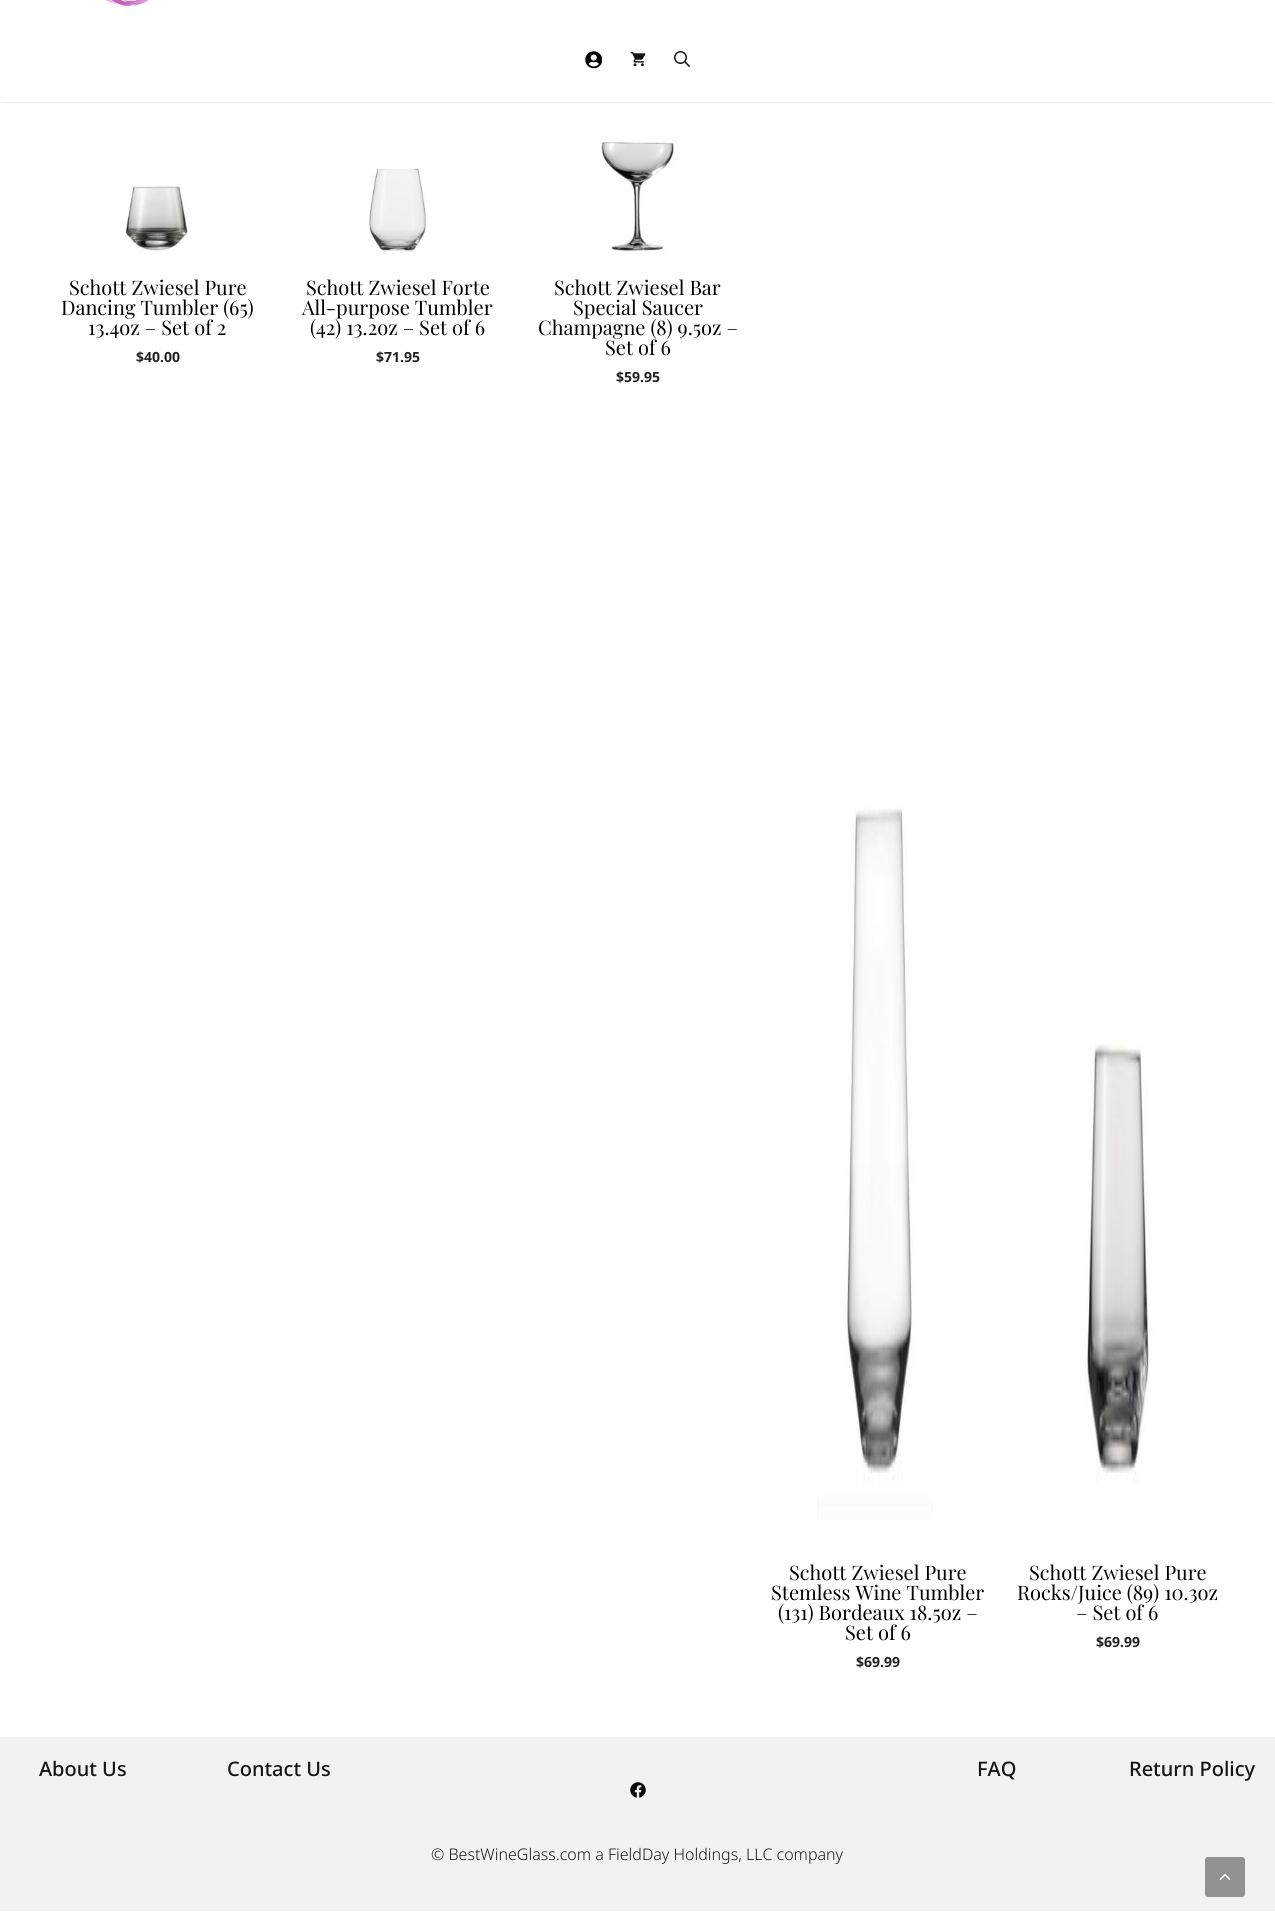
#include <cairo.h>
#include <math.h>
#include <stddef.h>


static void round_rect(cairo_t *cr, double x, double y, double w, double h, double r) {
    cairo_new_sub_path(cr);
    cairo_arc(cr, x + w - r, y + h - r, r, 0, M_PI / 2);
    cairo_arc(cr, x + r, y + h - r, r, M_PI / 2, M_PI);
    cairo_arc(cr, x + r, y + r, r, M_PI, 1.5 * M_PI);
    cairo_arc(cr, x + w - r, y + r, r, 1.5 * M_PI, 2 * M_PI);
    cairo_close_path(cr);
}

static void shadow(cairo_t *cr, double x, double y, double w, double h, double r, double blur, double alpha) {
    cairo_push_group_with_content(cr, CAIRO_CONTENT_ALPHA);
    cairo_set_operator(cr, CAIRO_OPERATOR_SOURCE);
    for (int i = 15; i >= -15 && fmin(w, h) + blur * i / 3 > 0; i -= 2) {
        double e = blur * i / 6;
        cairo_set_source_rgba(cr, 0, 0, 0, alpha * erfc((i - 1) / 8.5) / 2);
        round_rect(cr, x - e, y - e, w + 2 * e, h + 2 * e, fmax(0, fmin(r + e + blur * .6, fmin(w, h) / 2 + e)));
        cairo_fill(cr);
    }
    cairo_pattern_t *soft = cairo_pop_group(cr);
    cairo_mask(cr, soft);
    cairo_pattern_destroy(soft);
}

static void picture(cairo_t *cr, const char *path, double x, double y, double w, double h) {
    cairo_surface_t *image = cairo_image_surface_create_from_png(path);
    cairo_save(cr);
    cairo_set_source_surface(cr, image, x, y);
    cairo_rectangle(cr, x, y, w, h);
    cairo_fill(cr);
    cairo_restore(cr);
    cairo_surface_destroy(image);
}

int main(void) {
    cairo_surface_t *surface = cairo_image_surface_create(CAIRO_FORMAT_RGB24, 1275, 1927);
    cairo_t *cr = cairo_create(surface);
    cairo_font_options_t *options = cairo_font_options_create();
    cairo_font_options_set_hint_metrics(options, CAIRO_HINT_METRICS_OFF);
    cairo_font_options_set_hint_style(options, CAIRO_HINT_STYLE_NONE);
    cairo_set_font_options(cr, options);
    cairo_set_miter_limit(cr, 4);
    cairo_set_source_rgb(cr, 1, 1, 1);
    cairo_paint(cr);
    cairo_set_source_rgb(cr, 0, 0, 0);
    shadow(cr, 2, -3, 1271, 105, 0, 1, 0.2);
    cairo_set_source_rgb(cr, 1, 1, 1);
    cairo_rectangle(cr, 0, 0, 1275, 102);
    cairo_fill(cr);
    picture(cr, "img1.png", 106, 0, 43, 6);
    picture(cr, "img2.png", 585, 51, 17, 18);
    picture(cr, "img3.png", 630, 51, 16, 16);
    picture(cr, "img4.png", 674, 51, 16, 16);
    picture(cr, "img5.png", 125, 184, 63, 68);
    cairo_select_font_face(cr, "Playfair Display", CAIRO_FONT_SLANT_NORMAL, CAIRO_FONT_WEIGHT_NORMAL);
    cairo_set_font_size(cr, 20);
    cairo_set_source_rgb(cr, 0, 0, 0);
    cairo_move_to(cr, 69, 295);
    cairo_show_text(cr, "Schott Zwiesel Pure");
    cairo_move_to(cr, 61, 315);
    cairo_show_text(cr, "Dancing Tumbler (65)");
    cairo_move_to(cr, 88, 335);
    cairo_show_text(cr, "13.4oz – Set of 2");
    cairo_select_font_face(cr, "Noto Sans", CAIRO_FONT_SLANT_NORMAL, CAIRO_FONT_WEIGHT_BOLD);
    cairo_set_font_size(cr, 14);
    cairo_set_source_rgb(cr, 0.133, 0.133, 0.133);
    cairo_move_to(cr, 136, 362);
    cairo_show_text(cr, "$40.00");
    picture(cr, "img6.png", 369, 167, 58, 85);
    cairo_select_font_face(cr, "Playfair Display", CAIRO_FONT_SLANT_NORMAL, CAIRO_FONT_WEIGHT_NORMAL);
    cairo_set_font_size(cr, 20);
    cairo_set_source_rgb(cr, 0, 0, 0);
    cairo_move_to(cr, 306, 295);
    cairo_show_text(cr, "Schott Zwiesel Forte");
    cairo_move_to(cr, 302, 315);
    cairo_show_text(cr, "All-purpose Tumbler");
    cairo_move_to(cr, 310, 335);
    cairo_show_text(cr, "(42) 13.2oz – Set of 6");
    cairo_select_font_face(cr, "Noto Sans", CAIRO_FONT_SLANT_NORMAL, CAIRO_FONT_WEIGHT_BOLD);
    cairo_set_font_size(cr, 14);
    cairo_set_source_rgb(cr, 0.133, 0.133, 0.133);
    cairo_move_to(cr, 376, 362);
    cairo_show_text(cr, "$71.95");
    picture(cr, "img7.png", 600, 140, 74, 112);
    cairo_select_font_face(cr, "Playfair Display", CAIRO_FONT_SLANT_NORMAL, CAIRO_FONT_WEIGHT_NORMAL);
    cairo_set_font_size(cr, 20);
    cairo_set_source_rgb(cr, 0, 0, 0);
    cairo_move_to(cr, 554, 295);
    cairo_show_text(cr, "Schott Zwiesel Bar");
    cairo_move_to(cr, 573, 315);
    cairo_show_text(cr, "Special Saucer");
    cairo_move_to(cr, 538, 335);
    cairo_show_text(cr, "Champagne (8) 9.5oz –");
    cairo_move_to(cr, 605, 355);
    cairo_show_text(cr, "Set of 6");
    cairo_select_font_face(cr, "Noto Sans", CAIRO_FONT_SLANT_NORMAL, CAIRO_FONT_WEIGHT_BOLD);
    cairo_set_font_size(cr, 14);
    cairo_set_source_rgb(cr, 0.133, 0.133, 0.133);
    cairo_move_to(cr, 616, 382);
    cairo_show_text(cr, "$59.95");
    picture(cr, "img8.png", 817, 806, 116, 714);
    cairo_select_font_face(cr, "Playfair Display", CAIRO_FONT_SLANT_NORMAL, CAIRO_FONT_WEIGHT_NORMAL);
    cairo_set_font_size(cr, 20);
    cairo_set_source_rgb(cr, 0, 0, 0);
    cairo_move_to(cr, 789, 1580);
    cairo_show_text(cr, "Schott Zwiesel Pure");
    cairo_move_to(cr, 771, 1600);
    cairo_show_text(cr, "Stemless Wine Tumbler");
    cairo_move_to(cr, 778, 1620);
    cairo_show_text(cr, "(131) Bordeaux 18.5oz –");
    cairo_move_to(cr, 845, 1640);
    cairo_show_text(cr, "Set of 6");
    cairo_select_font_face(cr, "Noto Sans", CAIRO_FONT_SLANT_NORMAL, CAIRO_FONT_WEIGHT_BOLD);
    cairo_set_font_size(cr, 14);
    cairo_set_source_rgb(cr, 0.133, 0.133, 0.133);
    cairo_move_to(cr, 856, 1667);
    cairo_show_text(cr, "$69.99");
    picture(cr, "img9.png", 1085, 1044, 68, 440);
    cairo_select_font_face(cr, "Playfair Display", CAIRO_FONT_SLANT_NORMAL, CAIRO_FONT_WEIGHT_NORMAL);
    cairo_set_font_size(cr, 20);
    cairo_set_source_rgb(cr, 0, 0, 0);
    cairo_move_to(cr, 1029, 1580);
    cairo_show_text(cr, "Schott Zwiesel Pure");
    cairo_move_to(cr, 1017, 1600);
    cairo_show_text(cr, "Rocks/Juice (89) 10.3oz");
    cairo_move_to(cr, 1076, 1620);
    cairo_show_text(cr, "– Set of 6");
    cairo_select_font_face(cr, "Noto Sans", CAIRO_FONT_SLANT_NORMAL, CAIRO_FONT_WEIGHT_BOLD);
    cairo_set_font_size(cr, 14);
    cairo_set_source_rgb(cr, 0.133, 0.133, 0.133);
    cairo_move_to(cr, 1096, 1647);
    cairo_show_text(cr, "$69.99");
    cairo_set_source_rgb(cr, 0.949, 0.949, 0.949);
    cairo_rectangle(cr, 0, 1737, 1275, 174);
    cairo_fill(cr);
    cairo_select_font_face(cr, "Noto Sans Medium", CAIRO_FONT_SLANT_NORMAL, CAIRO_FONT_WEIGHT_NORMAL);
    cairo_set_font_size(cr, 20);
    cairo_set_source_rgb(cr, 0.086, 0.086, 0.086);
    cairo_move_to(cr, 39, 1776);
    cairo_show_text(cr, "About Us");
    cairo_move_to(cr, 227, 1776);
    cairo_show_text(cr, "Contact Us");
    cairo_move_to(cr, 977, 1776);
    cairo_show_text(cr, "FAQ");
    cairo_move_to(cr, 1129, 1776);
    cairo_show_text(cr, "Return Policy");
    picture(cr, "img10.png", 630, 1782, 16, 16);
    cairo_select_font_face(cr, "Noto Sans Light", CAIRO_FONT_SLANT_NORMAL, CAIRO_FONT_WEIGHT_NORMAL);
    cairo_set_font_size(cr, 16);
    cairo_move_to(cr, 431, 1860);
    cairo_show_text(cr, "© BestWineGlass.com a FieldDay Holdings, LLC company");
    cairo_set_source_rgb(cr, 0.569, 0.569, 0.569);
    round_rect(cr, 1205, 1857, 40, 40, 3);
    cairo_fill(cr);
    picture(cr, "img11.png", 1219, 1873, 12, 8);
    cairo_surface_write_to_png(surface, "page.png");
    cairo_font_options_destroy(options);
    cairo_destroy(cr);
    cairo_surface_destroy(surface);
    return 0;
}
